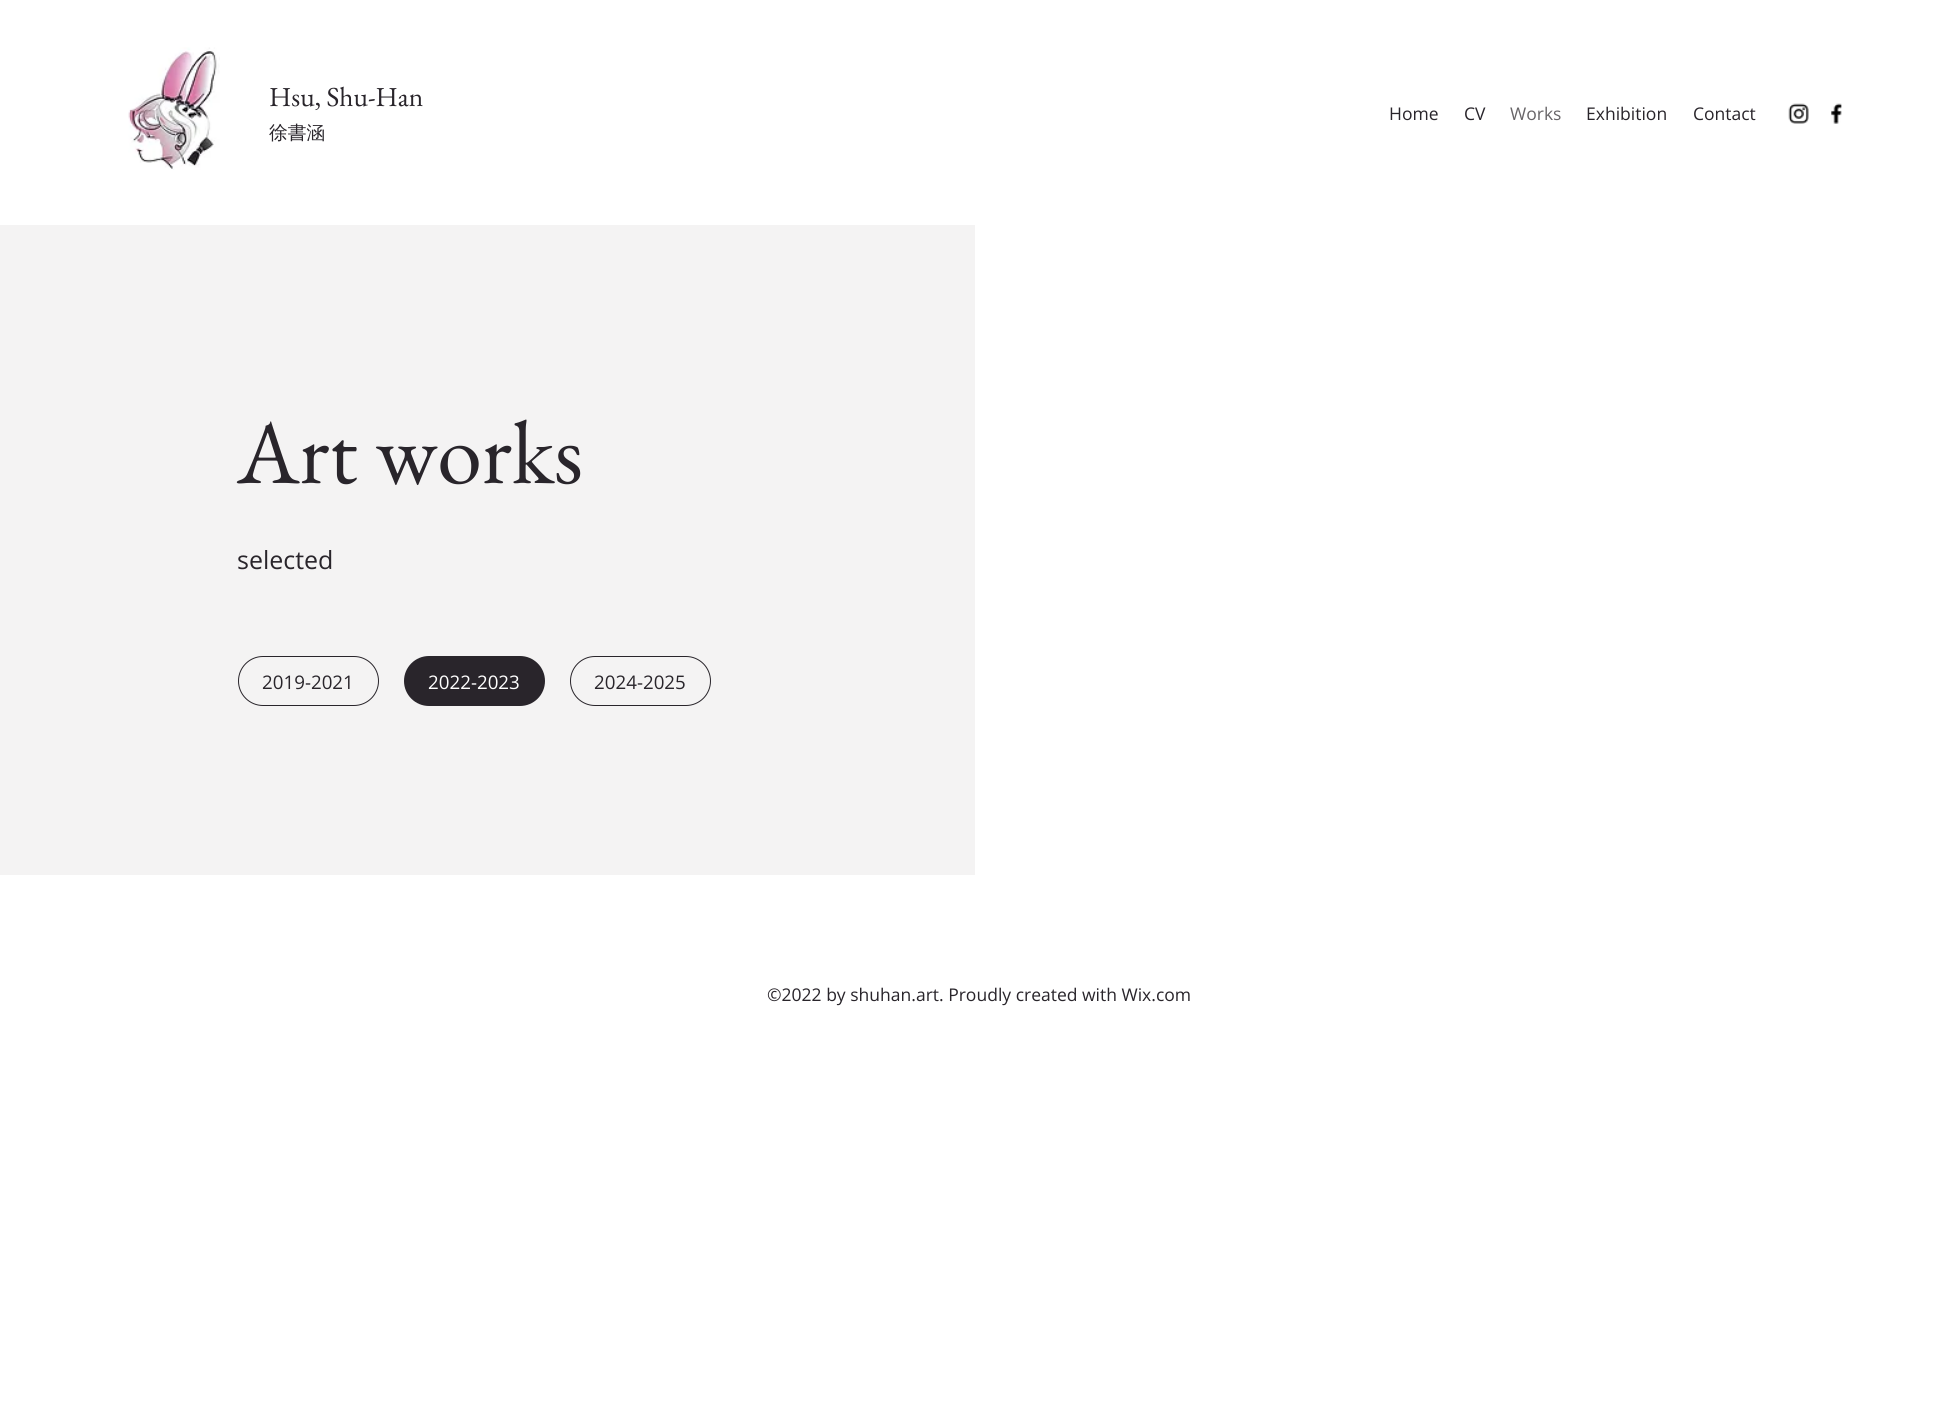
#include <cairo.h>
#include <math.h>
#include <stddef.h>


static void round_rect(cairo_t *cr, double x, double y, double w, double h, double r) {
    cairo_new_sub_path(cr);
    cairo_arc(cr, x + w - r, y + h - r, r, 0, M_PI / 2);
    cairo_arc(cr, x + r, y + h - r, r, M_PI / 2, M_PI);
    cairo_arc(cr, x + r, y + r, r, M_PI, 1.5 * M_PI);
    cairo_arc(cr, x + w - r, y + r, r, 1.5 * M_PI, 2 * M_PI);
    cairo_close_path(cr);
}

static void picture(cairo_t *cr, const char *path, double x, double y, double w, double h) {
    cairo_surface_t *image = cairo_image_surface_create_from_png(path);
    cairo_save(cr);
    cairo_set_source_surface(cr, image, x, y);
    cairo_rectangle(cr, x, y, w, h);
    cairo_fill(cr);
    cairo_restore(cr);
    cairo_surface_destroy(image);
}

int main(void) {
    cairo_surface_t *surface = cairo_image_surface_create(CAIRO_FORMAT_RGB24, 1948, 1402);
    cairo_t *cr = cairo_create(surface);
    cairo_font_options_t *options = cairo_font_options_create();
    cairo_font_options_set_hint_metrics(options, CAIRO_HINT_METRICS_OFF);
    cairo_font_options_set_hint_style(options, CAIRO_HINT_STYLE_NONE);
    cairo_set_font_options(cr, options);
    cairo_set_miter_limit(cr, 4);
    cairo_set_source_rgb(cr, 1, 1, 1);
    cairo_paint(cr);
    picture(cr, "img1.png", 128, 47, 92, 123);
    cairo_select_font_face(cr, "EB Garamond", CAIRO_FONT_SLANT_NORMAL, CAIRO_FONT_WEIGHT_NORMAL);
    cairo_set_font_size(cr, 27.5);
    cairo_set_source_rgb(cr, 0.161, 0.145, 0.169);
    cairo_move_to(cr, 269, 106);
    cairo_show_text(cr, "Hsu, Shu-Han");
    cairo_select_font_face(cr, "WenQuanYi Zen Hei Medium", CAIRO_FONT_SLANT_NORMAL, CAIRO_FONT_WEIGHT_NORMAL);
    cairo_set_font_size(cr, 18.75);
    cairo_move_to(cr, 269, 139);
    cairo_show_text(cr, "徐書涵");
    cairo_select_font_face(cr, "Open Sans", CAIRO_FONT_SLANT_NORMAL, CAIRO_FONT_WEIGHT_NORMAL);
    cairo_set_font_size(cr, 17.5);
    cairo_move_to(cr, 1389, 120);
    cairo_show_text(cr, "Home");
    cairo_move_to(cr, 1464, 120);
    cairo_show_text(cr, "CV");
    cairo_set_source_rgb(cr, 0.408, 0.396, 0.408);
    cairo_move_to(cr, 1510, 120);
    cairo_show_text(cr, "Works");
    cairo_set_source_rgb(cr, 0.161, 0.145, 0.169);
    cairo_move_to(cr, 1586, 120);
    cairo_show_text(cr, "Exhibition");
    cairo_move_to(cr, 1693, 120);
    cairo_show_text(cr, "Contact");
    picture(cr, "img2.png", 1788, 103, 21, 21);
    picture(cr, "img3.png", 1831, 103, 11, 21);
    cairo_set_source_rgb(cr, 0.957, 0.953, 0.953);
    cairo_rectangle(cr, 0, 225, 975, 650);
    cairo_fill(cr);
    cairo_select_font_face(cr, "EB Garamond", CAIRO_FONT_SLANT_NORMAL, CAIRO_FONT_WEIGHT_NORMAL);
    cairo_set_font_size(cr, 90);
    cairo_set_source_rgb(cr, 0.161, 0.145, 0.169);
    cairo_move_to(cr, 237, 483);
    cairo_show_text(cr, "Art works");
    cairo_select_font_face(cr, "Open Sans", CAIRO_FONT_SLANT_NORMAL, CAIRO_FONT_WEIGHT_NORMAL);
    cairo_set_font_size(cr, 25);
    cairo_move_to(cr, 237, 569);
    cairo_show_text(cr, "selected");
    round_rect(cr, 238.5, 656.5, 140, 49, 24.5);
    cairo_set_line_width(cr, 1);
    cairo_stroke(cr);
    cairo_set_font_size(cr, 18.75);
    cairo_move_to(cr, 262, 689);
    cairo_show_text(cr, "2019-2021");
    round_rect(cr, 404, 656, 141, 50, 25);
    cairo_fill(cr);
    cairo_set_source_rgb(cr, 1, 1, 1);
    cairo_move_to(cr, 428, 689);
    cairo_show_text(cr, "2022-2023");
    round_rect(cr, 570.5, 656.5, 140, 49, 24.5);
    cairo_set_source_rgb(cr, 0.161, 0.145, 0.169);
    cairo_stroke(cr);
    cairo_move_to(cr, 594, 689);
    cairo_show_text(cr, "2024-2025");
    cairo_set_font_size(cr, 17.5);
    cairo_move_to(cr, 767, 1001);
    cairo_show_text(cr, "©2022 by shuhan.art. Proudly created with Wix.com");
    cairo_surface_write_to_png(surface, "page.png");
    cairo_font_options_destroy(options);
    cairo_destroy(cr);
    cairo_surface_destroy(surface);
    return 0;
}
